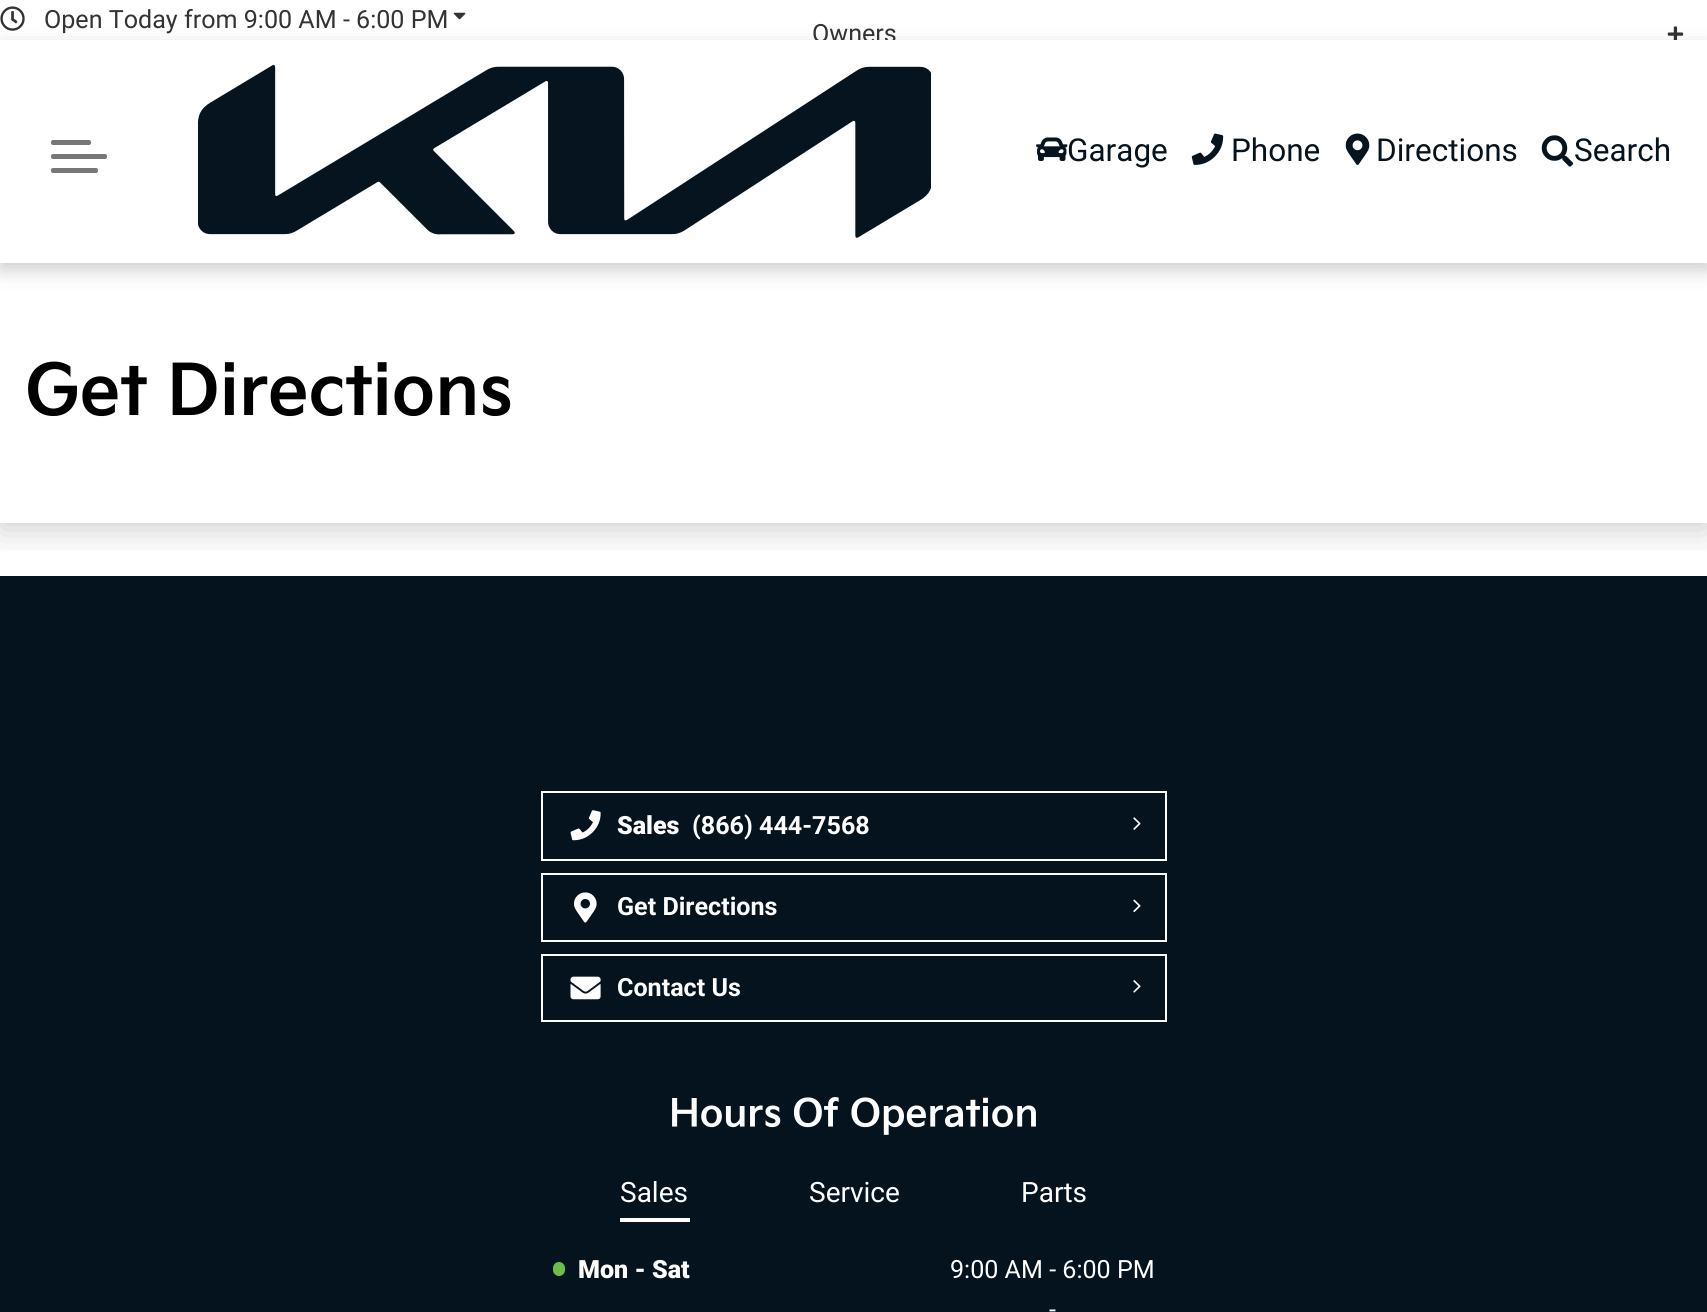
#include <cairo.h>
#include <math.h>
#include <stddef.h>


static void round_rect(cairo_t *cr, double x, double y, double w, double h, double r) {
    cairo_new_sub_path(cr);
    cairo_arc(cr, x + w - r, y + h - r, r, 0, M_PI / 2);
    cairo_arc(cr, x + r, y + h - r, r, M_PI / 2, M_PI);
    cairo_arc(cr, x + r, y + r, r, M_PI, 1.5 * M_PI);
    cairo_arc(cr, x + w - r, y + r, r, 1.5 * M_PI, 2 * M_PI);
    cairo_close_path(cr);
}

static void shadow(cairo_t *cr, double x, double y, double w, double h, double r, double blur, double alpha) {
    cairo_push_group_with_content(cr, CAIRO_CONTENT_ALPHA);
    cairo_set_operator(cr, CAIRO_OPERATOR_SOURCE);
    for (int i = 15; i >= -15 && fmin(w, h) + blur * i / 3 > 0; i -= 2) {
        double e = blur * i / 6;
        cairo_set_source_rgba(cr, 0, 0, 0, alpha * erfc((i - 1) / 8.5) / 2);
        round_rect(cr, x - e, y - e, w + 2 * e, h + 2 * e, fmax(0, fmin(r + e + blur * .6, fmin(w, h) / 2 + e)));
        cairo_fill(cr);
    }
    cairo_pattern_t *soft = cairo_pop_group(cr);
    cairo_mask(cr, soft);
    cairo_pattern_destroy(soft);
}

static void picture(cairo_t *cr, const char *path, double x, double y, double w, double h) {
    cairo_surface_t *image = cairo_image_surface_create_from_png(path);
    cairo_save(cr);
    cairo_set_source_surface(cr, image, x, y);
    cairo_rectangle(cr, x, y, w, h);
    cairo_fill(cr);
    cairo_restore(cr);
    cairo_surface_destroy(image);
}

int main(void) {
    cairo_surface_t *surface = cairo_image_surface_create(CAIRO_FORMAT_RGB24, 1707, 1312);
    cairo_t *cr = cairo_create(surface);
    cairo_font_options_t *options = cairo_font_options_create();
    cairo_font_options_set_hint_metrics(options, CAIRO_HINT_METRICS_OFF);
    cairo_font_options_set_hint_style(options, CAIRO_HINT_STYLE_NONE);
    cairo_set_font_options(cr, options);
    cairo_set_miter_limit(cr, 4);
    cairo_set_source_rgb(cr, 1, 1, 1);
    cairo_paint(cr);
    picture(cr, "img1.png", 0, 6, 25, 25);
    picture(cr, "img3.png", 1667, 26, 17, 14);
    cairo_set_source_rgb(cr, 0, 0, 0);
    shadow(cr, 0, 47, 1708, 223, 0, 9.5, 0.2);
    cairo_select_font_face(cr, "Roboto", CAIRO_FONT_SLANT_NORMAL, CAIRO_FONT_WEIGHT_NORMAL);
    cairo_set_font_size(cr, 25.1);
    cairo_set_source_rgb(cr, 0.2, 0.2, 0.2);
    cairo_move_to(cr, 44, 28);
    cairo_show_text(cr, "Open Today from 9:00 AM - 6:00 PM");
    picture(cr, "img2.png", 453, 12, 13, 8);
    cairo_move_to(cr, 812, 42);
    cairo_show_text(cr, "Owners");
    cairo_save(cr);
    cairo_rectangle(cr, 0, 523, 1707, 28);
    cairo_clip(cr);
    cairo_set_source_rgb(cr, 0, 0, 0);
    shadow(cr, 0, 268, 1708, 261, 0, 17.5, 0.2);
    cairo_restore(cr);
    cairo_set_source_rgb(cr, 1, 1, 1);
    cairo_rectangle(cr, 0, 40, 1707, 223);
    cairo_fill(cr);
    cairo_set_source_rgb(cr, 0.467, 0.467, 0.467);
    round_rect(cr, 51, 154, 56, 5, 2);
    cairo_fill(cr);
    round_rect(cr, 51, 140, 40, 5, 2);
    cairo_fill(cr);
    round_rect(cr, 51, 168, 47, 5, 2);
    cairo_fill(cr);
    picture(cr, "img4.png", 198, 65, 733, 173);
    picture(cr, "img5.png", 1036, 137, 32, 24);
    cairo_set_font_size(cr, 31.5);
    cairo_set_source_rgb(cr, 0.02, 0.078, 0.122);
    cairo_move_to(cr, 1067, 161);
    cairo_show_text(cr, "Garage");
    picture(cr, "img6.png", 1191, 133, 33, 32);
    cairo_move_to(cr, 1231, 161);
    cairo_show_text(cr, "Phone");
    picture(cr, "img7.png", 1345, 133, 25, 32);
    cairo_move_to(cr, 1376, 161);
    cairo_show_text(cr, "Directions");
    picture(cr, "img8.png", 1541, 135, 33, 32);
    cairo_move_to(cr, 1574, 161);
    cairo_show_text(cr, "Search");
    cairo_select_font_face(cr, "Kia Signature", CAIRO_FONT_SLANT_NORMAL, CAIRO_FONT_WEIGHT_BOLD);
    cairo_set_font_size(cr, 69);
    cairo_set_source_rgb(cr, 0, 0, 0);
    cairo_move_to(cr, 25, 414);
    cairo_show_text(cr, "Get Directions");
    cairo_set_source_rgb(cr, 0.02, 0.078, 0.122);
    cairo_rectangle(cr, 0, 576, 1707, 736);
    cairo_fill(cr);
    cairo_rectangle(cr, 542, 792, 624, 68);
    cairo_set_source_rgb(cr, 1, 1, 1);
    cairo_stroke(cr);
    picture(cr, "img9.png", 570, 810, 31, 31);
    cairo_select_font_face(cr, "Roboto Black", CAIRO_FONT_SLANT_NORMAL, CAIRO_FONT_WEIGHT_NORMAL);
    cairo_set_font_size(cr, 25.1);
    cairo_move_to(cr, 617, 834);
    cairo_show_text(cr, "Sales");
    cairo_select_font_face(cr, "Roboto", CAIRO_FONT_SLANT_NORMAL, CAIRO_FONT_WEIGHT_BOLD);
    cairo_move_to(cr, 692, 834);
    cairo_show_text(cr, "(866) 444-7568");
    picture(cr, "img10.png", 1133, 817, 8, 13);
    cairo_rectangle(cr, 542, 874, 624, 67);
    cairo_stroke(cr);
    picture(cr, "img11.png", 574, 892, 23, 31);
    cairo_move_to(cr, 617, 915);
    cairo_show_text(cr, "Get Directions");
    picture(cr, "img12.png", 1133, 899, 8, 14);
    cairo_rectangle(cr, 542, 955, 624, 66);
    cairo_stroke(cr);
    picture(cr, "img13.png", 570, 976, 31, 24);
    cairo_move_to(cr, 617, 996);
    cairo_show_text(cr, "Contact Us");
    picture(cr, "img14.png", 1133, 980, 8, 13);
    cairo_select_font_face(cr, "Kia Signature", CAIRO_FONT_SLANT_NORMAL, CAIRO_FONT_WEIGHT_BOLD);
    cairo_set_font_size(cr, 37.6);
    cairo_move_to(cr, 669, 1126);
    cairo_show_text(cr, "Hours Of Operation");
    cairo_rectangle(cr, 620, 1218, 70, 4);
    cairo_fill(cr);
    cairo_select_font_face(cr, "Roboto", CAIRO_FONT_SLANT_NORMAL, CAIRO_FONT_WEIGHT_NORMAL);
    cairo_set_font_size(cr, 28);
    cairo_move_to(cr, 620, 1202);
    cairo_show_text(cr, "Sales");
    cairo_move_to(cr, 809, 1202);
    cairo_show_text(cr, "Service");
    cairo_move_to(cr, 1021, 1202);
    cairo_show_text(cr, "Parts");
    cairo_set_source_rgb(cr, 0.42, 0.749, 0.286);
    round_rect(cr, 553, 1262, 12, 14, 6);
    cairo_fill(cr);
    cairo_select_font_face(cr, "Roboto Black", CAIRO_FONT_SLANT_NORMAL, CAIRO_FONT_WEIGHT_NORMAL);
    cairo_set_font_size(cr, 25.1);
    cairo_set_source_rgb(cr, 1, 1, 1);
    cairo_move_to(cr, 578, 1278);
    cairo_show_text(cr, "Mon - Sat");
    cairo_select_font_face(cr, "Roboto", CAIRO_FONT_SLANT_NORMAL, CAIRO_FONT_WEIGHT_NORMAL);
    cairo_move_to(cr, 950, 1278);
    cairo_show_text(cr, "9:00 AM - 6:00 PM");
    cairo_move_to(cr, 1049, 1318);
    cairo_show_text(cr, "-");
    cairo_surface_write_to_png(surface, "page.png");
    cairo_font_options_destroy(options);
    cairo_destroy(cr);
    cairo_surface_destroy(surface);
    return 0;
}
